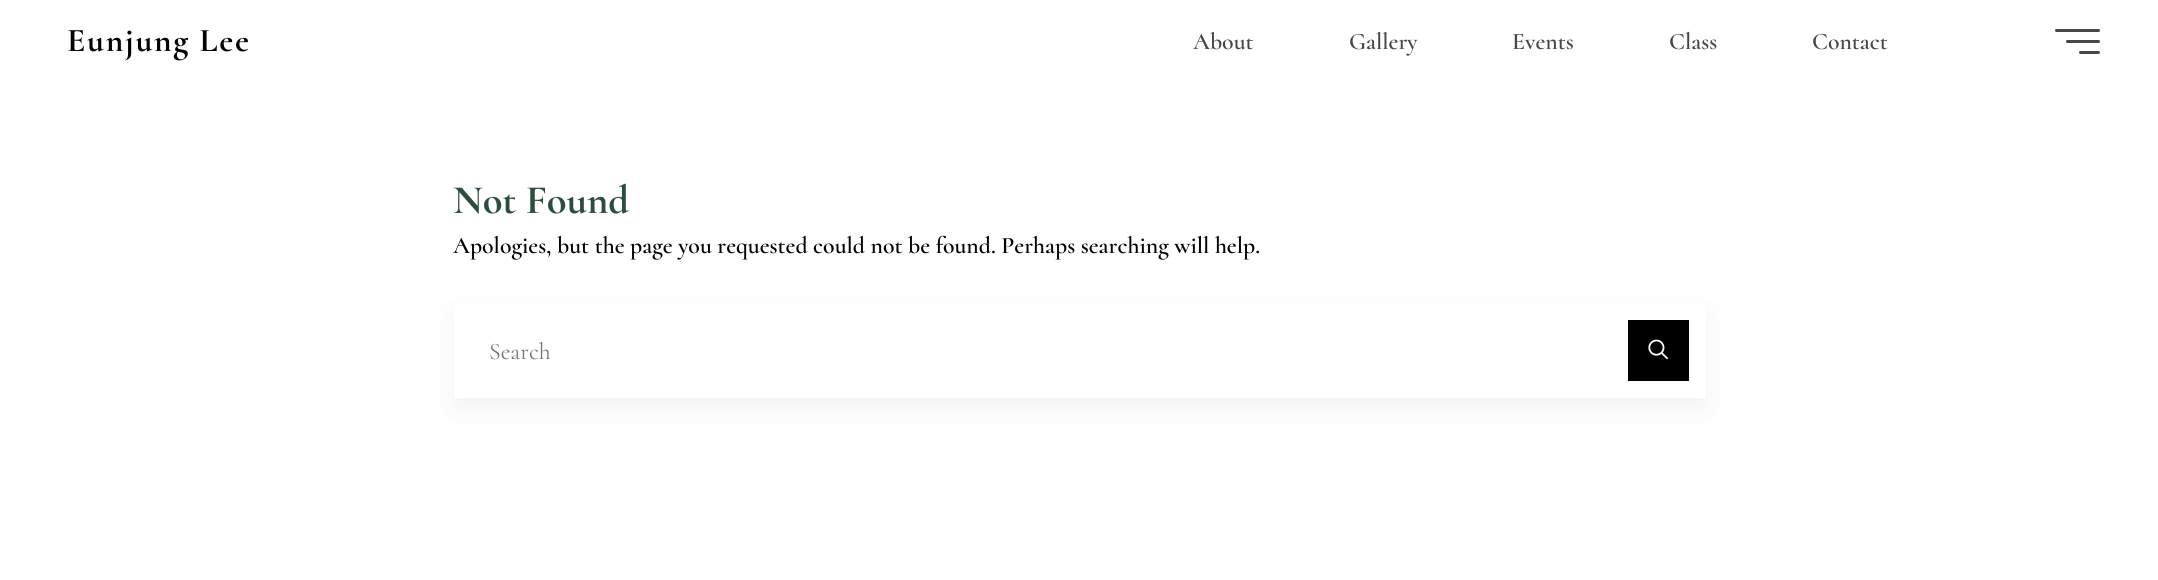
#include <cairo.h>
#include <math.h>
#include <stddef.h>


static void spaced_text(cairo_t *cr, double x, double y, const char *s, double letter, double word) {
    cairo_move_to(cr, x, y);
    while (*s) {
        char ch[5] = {0};
        int n = 0;
        do ch[n++] = *s++; while ((*s & 0xC0) == 0x80);
        cairo_show_text(cr, ch);
        cairo_rel_move_to(cr, letter + word * (*ch == ' '), 0);
    }
}

static void round_rect(cairo_t *cr, double x, double y, double w, double h, double r) {
    cairo_new_sub_path(cr);
    cairo_arc(cr, x + w - r, y + h - r, r, 0, M_PI / 2);
    cairo_arc(cr, x + r, y + h - r, r, M_PI / 2, M_PI);
    cairo_arc(cr, x + r, y + r, r, M_PI, 1.5 * M_PI);
    cairo_arc(cr, x + w - r, y + r, r, 1.5 * M_PI, 2 * M_PI);
    cairo_close_path(cr);
}

static void shadow(cairo_t *cr, double x, double y, double w, double h, double r, double blur, double alpha) {
    cairo_push_group_with_content(cr, CAIRO_CONTENT_ALPHA);
    cairo_set_operator(cr, CAIRO_OPERATOR_SOURCE);
    for (int i = 15; i >= -15 && fmin(w, h) + blur * i / 3 > 0; i -= 2) {
        double e = blur * i / 6;
        cairo_set_source_rgba(cr, 0, 0, 0, alpha * erfc((i - 1) / 8.5) / 2);
        round_rect(cr, x - e, y - e, w + 2 * e, h + 2 * e, fmax(0, fmin(r + e + blur * .6, fmin(w, h) / 2 + e)));
        cairo_fill(cr);
    }
    cairo_pattern_t *soft = cairo_pop_group(cr);
    cairo_mask(cr, soft);
    cairo_pattern_destroy(soft);
}

static void picture(cairo_t *cr, const char *path, double x, double y, double w, double h) {
    cairo_surface_t *image = cairo_image_surface_create_from_png(path);
    cairo_save(cr);
    cairo_set_source_surface(cr, image, x, y);
    cairo_rectangle(cr, x, y, w, h);
    cairo_fill(cr);
    cairo_restore(cr);
    cairo_surface_destroy(image);
}

int main(void) {
    cairo_surface_t *surface = cairo_image_surface_create(CAIRO_FORMAT_RGB24, 2158, 580);
    cairo_t *cr = cairo_create(surface);
    cairo_font_options_t *options = cairo_font_options_create();
    cairo_font_options_set_hint_metrics(options, CAIRO_HINT_METRICS_OFF);
    cairo_font_options_set_hint_style(options, CAIRO_HINT_STYLE_NONE);
    cairo_set_font_options(cr, options);
    cairo_set_miter_limit(cr, 4);
    cairo_set_source_rgb(cr, 1, 1, 1);
    cairo_paint(cr);
    cairo_select_font_face(cr, "Cormorant", CAIRO_FONT_SLANT_NORMAL, CAIRO_FONT_WEIGHT_BOLD);
    cairo_set_font_size(cr, 33.25);
    cairo_set_source_rgb(cr, 0.008, 0.008, 0.008);
    spaced_text(cr, 67, 51, "Eunjung Lee", 1.75, 0);
    cairo_select_font_face(cr, "Cormorant SemiBold", CAIRO_FONT_SLANT_NORMAL, CAIRO_FONT_WEIGHT_NORMAL);
    cairo_set_font_size(cr, 23.75);
    cairo_set_source_rgb(cr, 0.278, 0.278, 0.278);
    cairo_move_to(cr, 1193, 49);
    cairo_show_text(cr, "About");
    cairo_move_to(cr, 1349, 49);
    cairo_show_text(cr, "Gallery");
    cairo_move_to(cr, 1512, 49);
    cairo_show_text(cr, "Events");
    cairo_move_to(cr, 1669, 49);
    cairo_show_text(cr, "Class");
    cairo_move_to(cr, 1812, 49);
    cairo_show_text(cr, "Contact");
    round_rect(cr, 2055, 29, 45, 3, 1.5);
    cairo_fill(cr);
    round_rect(cr, 2066, 40, 34, 3, 1.5);
    cairo_fill(cr);
    round_rect(cr, 2079, 51, 21, 3, 1.5);
    cairo_fill(cr);
    cairo_select_font_face(cr, "Cormorant", CAIRO_FONT_SLANT_NORMAL, CAIRO_FONT_WEIGHT_BOLD);
    cairo_set_font_size(cr, 40.5);
    cairo_set_source_rgb(cr, 0.173, 0.298, 0.239);
    cairo_move_to(cr, 453, 213);
    cairo_show_text(cr, "Not Found");
    cairo_select_font_face(cr, "Cormorant SemiBold", CAIRO_FONT_SLANT_NORMAL, CAIRO_FONT_WEIGHT_NORMAL);
    cairo_set_font_size(cr, 23.75);
    cairo_set_source_rgb(cr, 0.008, 0.008, 0.008);
    cairo_move_to(cr, 453, 253);
    cairo_show_text(cr, "Apologies, but the page you requested could not be found. Perhaps searching will help.");
    cairo_set_source_rgb(cr, 0, 0, 0);
    shadow(cr, 454, 315, 1252, 95, 0, 12.5, 0.05);
    cairo_set_source_rgb(cr, 1, 1, 1);
    cairo_rectangle(cr, 454, 305, 1252, 93);
    cairo_fill(cr);
    cairo_select_font_face(cr, "Cormorant", CAIRO_FONT_SLANT_NORMAL, CAIRO_FONT_WEIGHT_NORMAL);
    cairo_set_source_rgb(cr, 0.459, 0.459, 0.459);
    cairo_move_to(cr, 489, 359);
    cairo_show_text(cr, "Search");
    cairo_set_source_rgb(cr, 0, 0, 0);
    cairo_rectangle(cr, 1628, 320, 61, 61);
    cairo_fill(cr);
    picture(cr, "img1.png", 1648, 339, 20, 21);
    cairo_surface_write_to_png(surface, "page.png");
    cairo_font_options_destroy(options);
    cairo_destroy(cr);
    cairo_surface_destroy(surface);
    return 0;
}
